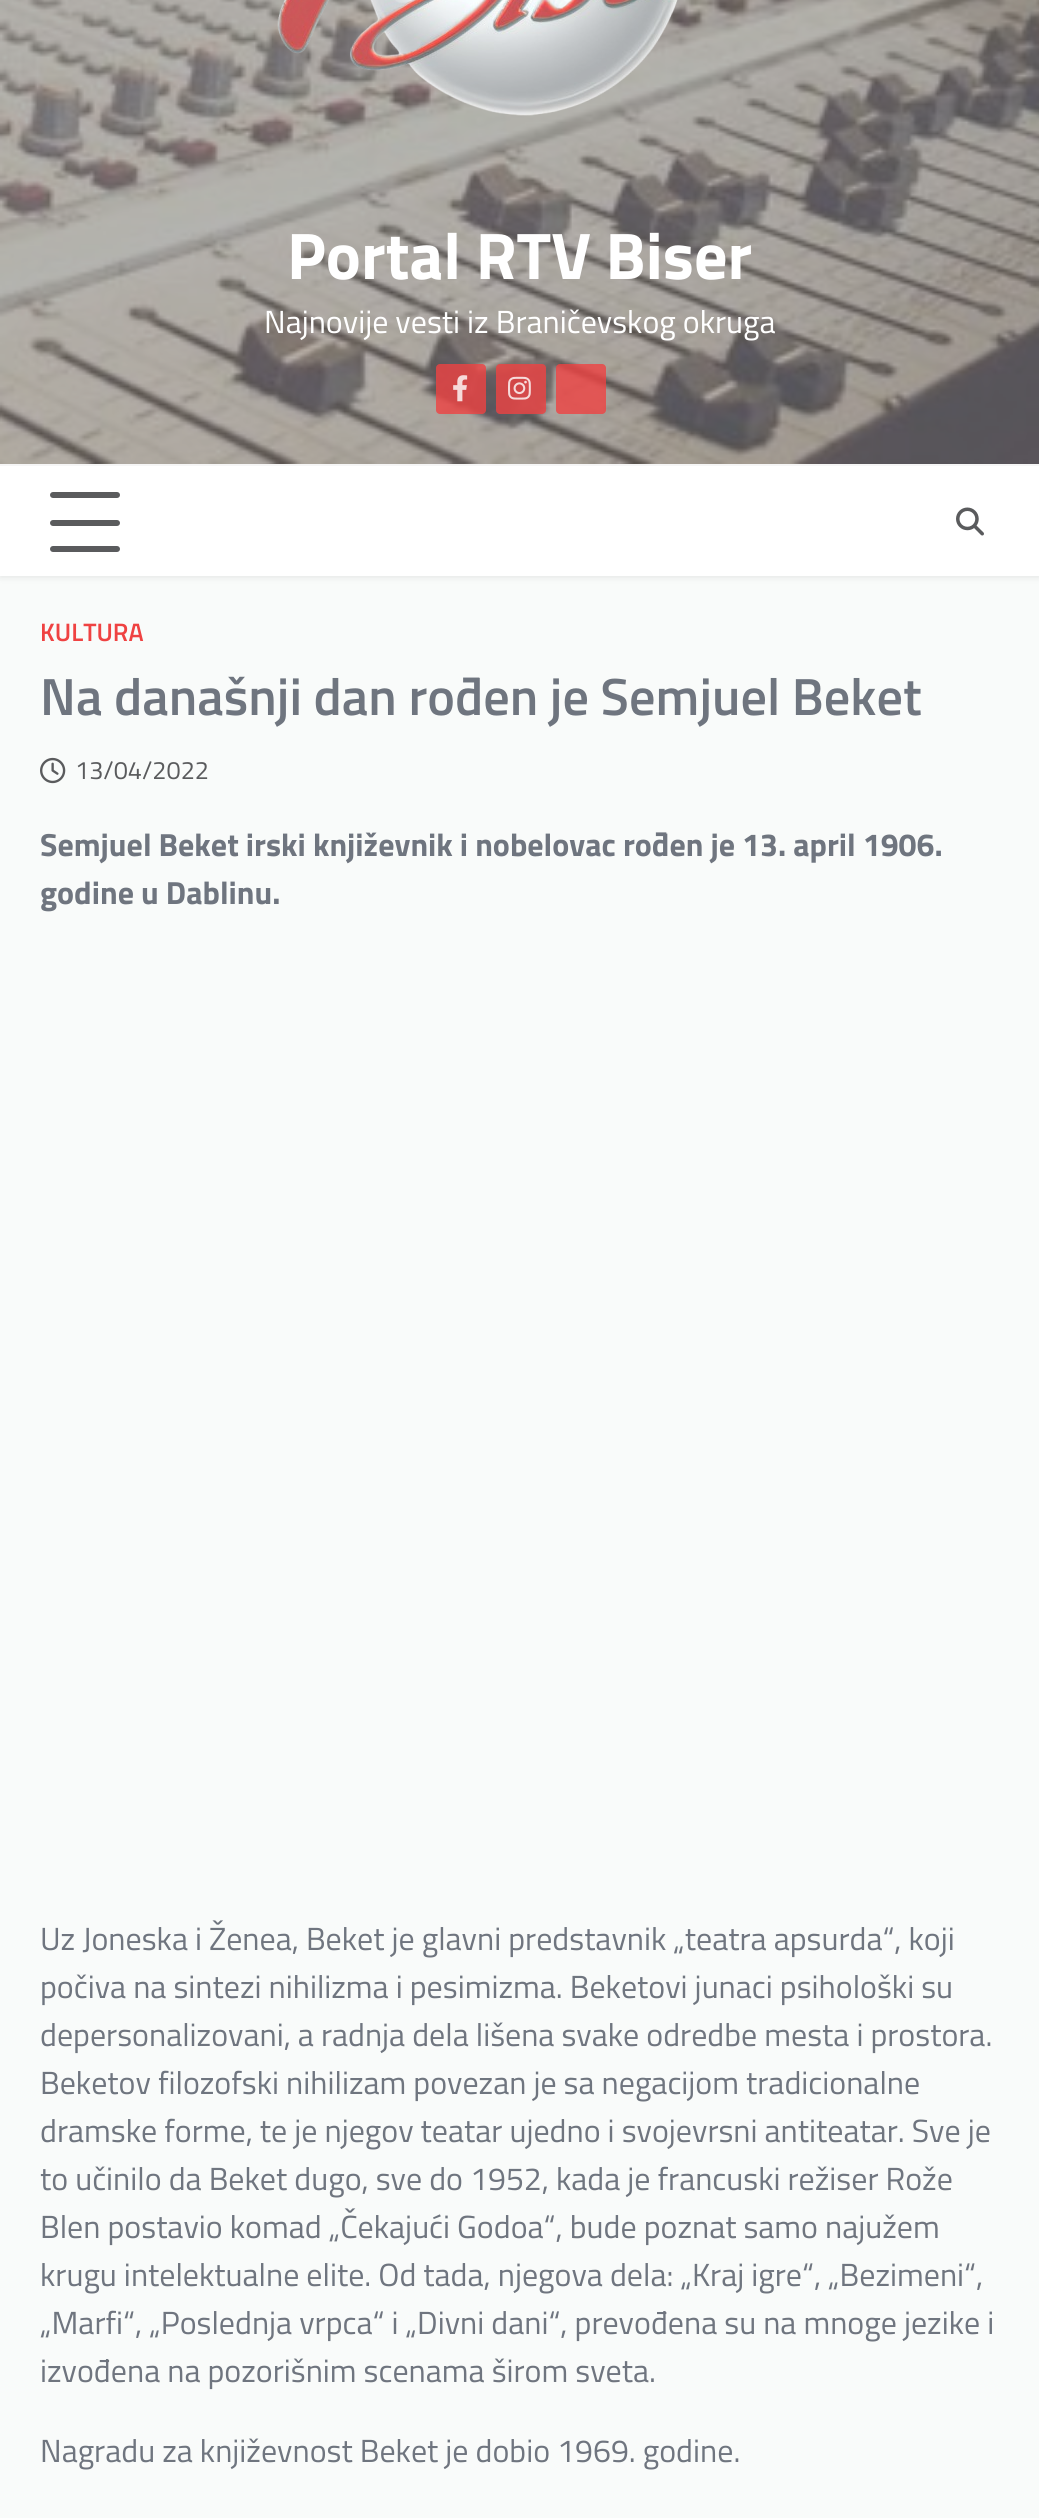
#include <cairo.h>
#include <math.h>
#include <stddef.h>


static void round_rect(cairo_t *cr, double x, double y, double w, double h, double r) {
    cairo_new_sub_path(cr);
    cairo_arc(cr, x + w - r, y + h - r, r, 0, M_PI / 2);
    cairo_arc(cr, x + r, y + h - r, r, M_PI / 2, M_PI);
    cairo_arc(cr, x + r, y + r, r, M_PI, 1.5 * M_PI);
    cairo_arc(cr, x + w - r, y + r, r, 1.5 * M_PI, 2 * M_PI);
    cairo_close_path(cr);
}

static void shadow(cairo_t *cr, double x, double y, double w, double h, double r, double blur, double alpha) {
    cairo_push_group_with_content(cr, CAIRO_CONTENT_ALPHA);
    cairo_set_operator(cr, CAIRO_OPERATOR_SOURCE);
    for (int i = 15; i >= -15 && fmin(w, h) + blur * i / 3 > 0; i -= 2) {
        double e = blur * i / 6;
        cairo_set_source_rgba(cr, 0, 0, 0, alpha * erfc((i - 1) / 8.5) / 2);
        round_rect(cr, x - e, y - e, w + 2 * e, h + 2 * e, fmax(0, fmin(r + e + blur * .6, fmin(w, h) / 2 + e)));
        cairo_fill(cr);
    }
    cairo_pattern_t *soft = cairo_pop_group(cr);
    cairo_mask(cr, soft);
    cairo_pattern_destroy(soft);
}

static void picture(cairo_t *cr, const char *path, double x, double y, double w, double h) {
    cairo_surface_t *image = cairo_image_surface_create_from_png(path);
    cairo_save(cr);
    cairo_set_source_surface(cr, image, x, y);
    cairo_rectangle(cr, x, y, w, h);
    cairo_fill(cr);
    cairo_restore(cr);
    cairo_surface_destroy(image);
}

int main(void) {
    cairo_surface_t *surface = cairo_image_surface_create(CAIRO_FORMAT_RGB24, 1039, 2518);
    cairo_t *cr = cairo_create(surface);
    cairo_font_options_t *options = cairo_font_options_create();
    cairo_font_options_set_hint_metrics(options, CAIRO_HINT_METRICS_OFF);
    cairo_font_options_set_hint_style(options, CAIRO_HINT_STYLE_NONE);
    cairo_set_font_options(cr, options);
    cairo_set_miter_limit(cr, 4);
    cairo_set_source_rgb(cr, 0.976, 0.984, 0.98);
    cairo_paint(cr);
    cairo_set_source_rgb(cr, 0.259, 0.259, 0.259);
    shadow(cr, 0, -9, 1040, 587, 0, 3, 0.1);
    picture(cr, "img1.png", 0, 0, 1039, 464);
    picture(cr, "img2.png", 277, 0, 401, 116);
    cairo_select_font_face(cr, "Titillium Web", CAIRO_FONT_SLANT_NORMAL, CAIRO_FONT_WEIGHT_BOLD);
    cairo_set_font_size(cr, 66);
    cairo_set_source_rgb(cr, 1, 1, 1);
    cairo_move_to(cr, 287, 279);
    cairo_show_text(cr, "Portal RTV Biser");
    cairo_select_font_face(cr, "Titillium Web", CAIRO_FONT_SLANT_NORMAL, CAIRO_FONT_WEIGHT_NORMAL);
    cairo_set_font_size(cr, 32);
    cairo_move_to(cr, 264, 333);
    cairo_show_text(cr, "Najnovije vesti iz Braničevskog okruga");
    cairo_set_source_rgba(cr, 0.937, 0.259, 0.259, 0.8);
    round_rect(cr, 436, 364, 50, 50, 4);
    cairo_fill(cr);
    picture(cr, "img3.png", 453, 375, 15, 27);
    round_rect(cr, 496, 364, 50, 50, 4);
    cairo_fill(cr);
    picture(cr, "img4.png", 508, 376, 23, 24);
    round_rect(cr, 556, 364, 50, 50, 4);
    cairo_fill(cr);
    cairo_set_source_rgb(cr, 1, 1, 1);
    cairo_rectangle(cr, 0, 466, 1039, 110);
    cairo_fill(cr);
    cairo_set_source_rgb(cr, 0.961, 0.961, 0.961);
    cairo_rectangle(cr, 0, 464, 1039, 2);
    cairo_fill(cr);
    cairo_set_source_rgb(cr, 0.353, 0.357, 0.365);
    round_rect(cr, 50, 492, 70, 6, 3);
    cairo_fill(cr);
    round_rect(cr, 50, 520, 70, 6, 3);
    cairo_fill(cr);
    round_rect(cr, 50, 546, 70, 6, 3);
    cairo_fill(cr);
    picture(cr, "img5.png", 956, 507, 28, 29);
    cairo_select_font_face(cr, "Titillium Web SemiBold", CAIRO_FONT_SLANT_NORMAL, CAIRO_FONT_WEIGHT_NORMAL);
    cairo_set_font_size(cr, 25.25);
    cairo_set_source_rgb(cr, 0.937, 0.259, 0.259);
    cairo_move_to(cr, 40, 641);
    cairo_show_text(cr, "KULTURA");
    cairo_set_font_size(cr, 52.3);
    cairo_set_source_rgb(cr, 0.435, 0.459, 0.498);
    cairo_move_to(cr, 40, 715);
    cairo_show_text(cr, "Na današnji dan rođen je Semjuel Beket");
    picture(cr, "img6.png", 40, 757, 26, 27);
    cairo_select_font_face(cr, "Titillium Web", CAIRO_FONT_SLANT_NORMAL, CAIRO_FONT_WEIGHT_NORMAL);
    cairo_set_font_size(cr, 25.25);
    cairo_set_source_rgb(cr, 0.353, 0.357, 0.365);
    cairo_move_to(cr, 75, 779);
    cairo_show_text(cr, "13/04/2022");
    cairo_select_font_face(cr, "Titillium Web", CAIRO_FONT_SLANT_NORMAL, CAIRO_FONT_WEIGHT_BOLD);
    cairo_set_font_size(cr, 32);
    cairo_set_source_rgb(cr, 0.435, 0.459, 0.498);
    cairo_move_to(cr, 40, 856);
    cairo_show_text(cr, "Semjuel Beket irski književnik i nobelovac rođen je 13. april 1906.");
    cairo_move_to(cr, 40, 904);
    cairo_show_text(cr, "godine u Dablinu.");
    cairo_select_font_face(cr, "Titillium Web", CAIRO_FONT_SLANT_NORMAL, CAIRO_FONT_WEIGHT_NORMAL);
    cairo_move_to(cr, 40, 1950);
    cairo_show_text(cr, "Uz Joneska i Ženea, Beket je glavni predstavnik „teatra apsurda“, koji");
    cairo_move_to(cr, 40, 1998);
    cairo_show_text(cr, "počiva na sintezi nihilizma i pesimizma. Beketovi junaci psihološki su");
    cairo_move_to(cr, 40, 2046);
    cairo_show_text(cr, "depersonalizovani, a radnja dela lišena svake odredbe mesta i prostora.");
    cairo_move_to(cr, 40, 2094);
    cairo_show_text(cr, "Beketov filozofski nihilizam povezan je sa negacijom tradicionalne");
    cairo_move_to(cr, 40, 2142);
    cairo_show_text(cr, "dramske forme, te je njegov teatar ujedno i svojevrsni antiteatar. Sve je");
    cairo_move_to(cr, 40, 2190);
    cairo_show_text(cr, "to učinilo da Beket dugo, sve do 1952, kada je francuski režiser Rože");
    cairo_move_to(cr, 40, 2238);
    cairo_show_text(cr, "Blen postavio komad „Čekajući Godoa“, bude poznat samo najužem");
    cairo_move_to(cr, 40, 2286);
    cairo_show_text(cr, "krugu intelektualne elite. Od tada, njegova dela: „Kraj igre“, „Bezimeni“,");
    cairo_move_to(cr, 40, 2334);
    cairo_show_text(cr, "„Marfi“, „Poslednja vrpca“ i „Divni dani“, prevođena su na mnoge jezike i");
    cairo_move_to(cr, 40, 2382);
    cairo_show_text(cr, "izvođena na pozorišnim scenama širom sveta.");
    cairo_move_to(cr, 40, 2462);
    cairo_show_text(cr, "Nagradu za književnost Beket je dobio 1969. godine.");
    cairo_surface_write_to_png(surface, "page.png");
    cairo_font_options_destroy(options);
    cairo_destroy(cr);
    cairo_surface_destroy(surface);
    return 0;
}
